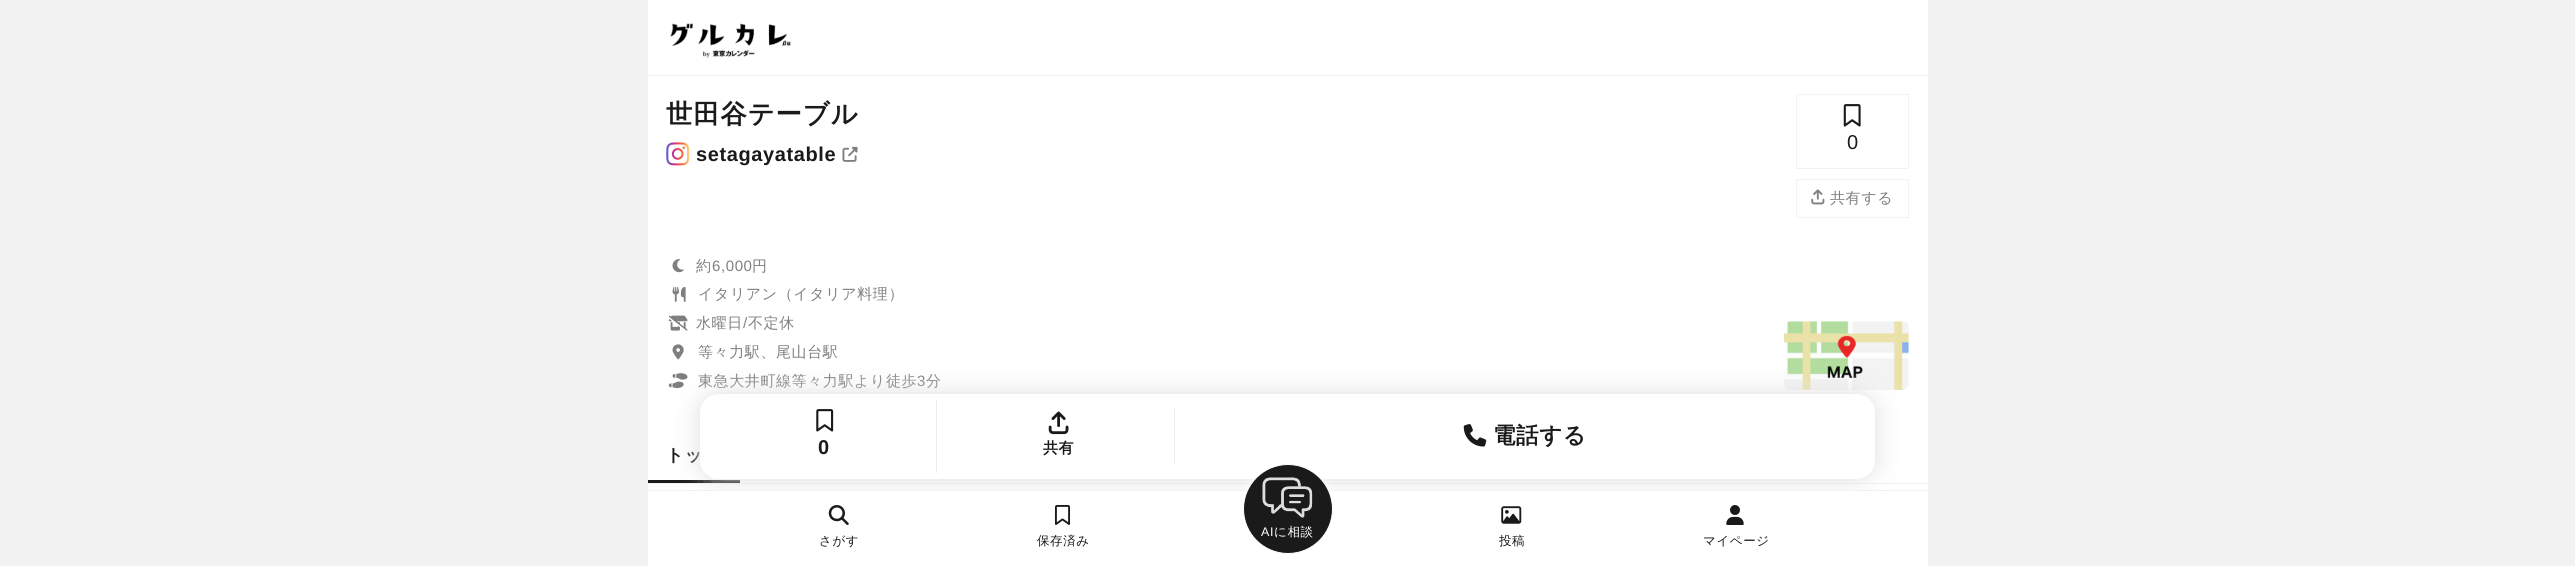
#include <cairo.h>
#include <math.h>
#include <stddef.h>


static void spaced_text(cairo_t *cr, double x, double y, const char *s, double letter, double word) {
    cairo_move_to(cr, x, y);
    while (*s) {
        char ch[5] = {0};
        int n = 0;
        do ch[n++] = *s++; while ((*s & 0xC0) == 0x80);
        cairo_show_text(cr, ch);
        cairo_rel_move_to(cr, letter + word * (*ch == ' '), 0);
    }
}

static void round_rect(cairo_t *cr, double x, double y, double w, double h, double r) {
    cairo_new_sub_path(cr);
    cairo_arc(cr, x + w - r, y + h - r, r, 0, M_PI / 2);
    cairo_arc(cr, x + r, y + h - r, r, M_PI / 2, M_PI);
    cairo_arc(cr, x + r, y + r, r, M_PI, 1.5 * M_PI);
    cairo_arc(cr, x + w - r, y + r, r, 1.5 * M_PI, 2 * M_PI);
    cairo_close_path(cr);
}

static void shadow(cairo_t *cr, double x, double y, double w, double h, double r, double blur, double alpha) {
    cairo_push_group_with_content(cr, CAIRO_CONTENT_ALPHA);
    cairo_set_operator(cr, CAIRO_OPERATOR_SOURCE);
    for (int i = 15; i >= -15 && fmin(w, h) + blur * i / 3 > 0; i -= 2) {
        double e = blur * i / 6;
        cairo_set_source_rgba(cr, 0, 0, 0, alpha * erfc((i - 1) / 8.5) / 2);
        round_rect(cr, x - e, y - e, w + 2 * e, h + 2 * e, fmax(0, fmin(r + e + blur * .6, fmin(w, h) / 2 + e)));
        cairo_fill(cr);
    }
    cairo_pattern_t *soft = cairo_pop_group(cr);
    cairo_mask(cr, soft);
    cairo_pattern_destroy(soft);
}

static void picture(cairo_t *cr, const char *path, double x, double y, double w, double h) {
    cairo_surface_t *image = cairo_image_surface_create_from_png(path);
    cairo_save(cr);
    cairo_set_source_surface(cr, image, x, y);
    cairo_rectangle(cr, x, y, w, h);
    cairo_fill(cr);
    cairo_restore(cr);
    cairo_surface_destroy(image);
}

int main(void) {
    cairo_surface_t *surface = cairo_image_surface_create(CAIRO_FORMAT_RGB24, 2575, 566);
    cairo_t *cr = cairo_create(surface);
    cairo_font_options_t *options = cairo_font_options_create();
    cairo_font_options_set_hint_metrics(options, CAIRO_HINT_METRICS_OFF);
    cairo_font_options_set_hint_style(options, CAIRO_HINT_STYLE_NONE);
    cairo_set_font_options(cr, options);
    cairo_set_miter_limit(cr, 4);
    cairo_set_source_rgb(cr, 0.949, 0.949, 0.949);
    cairo_paint(cr);
    cairo_set_source_rgb(cr, 1, 1, 1);
    cairo_rectangle(cr, 648, 0, 1280, 490);
    cairo_fill(cr);
    cairo_set_source_rgb(cr, 0.949, 0.949, 0.949);
    cairo_rectangle(cr, 648, 75, 1280, 1);
    cairo_fill(cr);
    picture(cr, "img1.png", 670, 23, 121, 35);
    cairo_select_font_face(cr, "WenQuanYi Zen Hei", CAIRO_FONT_SLANT_NORMAL, CAIRO_FONT_WEIGHT_BOLD);
    cairo_set_font_size(cr, 26.25);
    cairo_set_source_rgb(cr, 0.102, 0.102, 0.102);
    spaced_text(cr, 666, 123, "世田谷テーブル", 1, 0);
    picture(cr, "img2.png", 666, 142, 24, 24);
    cairo_select_font_face(cr, "Liberation Sans", CAIRO_FONT_SLANT_NORMAL, CAIRO_FONT_WEIGHT_BOLD);
    cairo_set_font_size(cr, 20);
    spaced_text(cr, 696, 161, "setagayatable", 0.6, 0);
    picture(cr, "img3.png", 842, 146, 16, 16);
    cairo_rectangle(cr, 1796.5, 94.5, 112, 74);
    cairo_set_source_rgb(cr, 0.949, 0.949, 0.949);
    cairo_set_line_width(cr, 1);
    cairo_stroke(cr);
    picture(cr, "img4.png", 1843, 104, 18, 23);
    cairo_select_font_face(cr, "Liberation Sans", CAIRO_FONT_SLANT_NORMAL, CAIRO_FONT_WEIGHT_NORMAL);
    cairo_set_source_rgb(cr, 0.102, 0.102, 0.102);
    spaced_text(cr, 1847, 149, "0", 0.6, 0);
    cairo_rectangle(cr, 1796.5, 179.5, 112, 38);
    cairo_set_source_rgb(cr, 0.949, 0.949, 0.949);
    cairo_stroke(cr);
    picture(cr, "img5.png", 1811, 189, 14, 16);
    cairo_select_font_face(cr, "WenQuanYi Zen Hei Medium", CAIRO_FONT_SLANT_NORMAL, CAIRO_FONT_WEIGHT_NORMAL);
    cairo_set_font_size(cr, 15);
    cairo_set_source_rgb(cr, 0.502, 0.502, 0.502);
    spaced_text(cr, 1830, 203, "共有する", 0.6, 0);
    picture(cr, "img6.png", 672, 259, 12, 14);
    spaced_text(cr, 696, 271, "約", 0.6, 0);
    cairo_select_font_face(cr, "Liberation Sans", CAIRO_FONT_SLANT_NORMAL, CAIRO_FONT_WEIGHT_NORMAL);
    spaced_text(cr, 712, 271, "6,000", 0.6, 0);
    cairo_select_font_face(cr, "WenQuanYi Zen Hei Medium", CAIRO_FONT_SLANT_NORMAL, CAIRO_FONT_WEIGHT_NORMAL);
    spaced_text(cr, 752, 271, "円", 0.6, 0);
    picture(cr, "img7.png", 672, 286, 14, 16);
    spaced_text(cr, 698, 299, "イタリアン（イタリア料理）", 0.6, 0);
    picture(cr, "img8.png", 668, 315, 20, 16);
    spaced_text(cr, 696, 328, "水曜日", 0.6, 0);
    cairo_select_font_face(cr, "Liberation Sans", CAIRO_FONT_SLANT_NORMAL, CAIRO_FONT_WEIGHT_NORMAL);
    spaced_text(cr, 743, 328, "/", 0.6, 0);
    cairo_select_font_face(cr, "WenQuanYi Zen Hei Medium", CAIRO_FONT_SLANT_NORMAL, CAIRO_FONT_WEIGHT_NORMAL);
    spaced_text(cr, 748, 328, "不定休", 0.6, 0);
    picture(cr, "img9.png", 672, 344, 12, 16);
    spaced_text(cr, 698, 357, "等々力駅、尾山台駅", 0.6, 0);
    picture(cr, "img10.png", 668, 373, 20, 16);
    spaced_text(cr, 698, 386, "東急大井町線等々力駅より徒歩", 0.6, 0);
    cairo_select_font_face(cr, "Liberation Sans", CAIRO_FONT_SLANT_NORMAL, CAIRO_FONT_WEIGHT_NORMAL);
    spaced_text(cr, 917, 386, "3", 0.6, 0);
    cairo_select_font_face(cr, "WenQuanYi Zen Hei Medium", CAIRO_FONT_SLANT_NORMAL, CAIRO_FONT_WEIGHT_NORMAL);
    spaced_text(cr, 926, 386, "分", 0.6, 0);
    picture(cr, "img11.png", 1783, 321, 126, 69);
    cairo_set_source_rgb(cr, 0.949, 0.949, 0.949);
    cairo_rectangle(cr, 648, 483, 1280, 1);
    cairo_fill(cr);
    cairo_set_source_rgb(cr, 0.102, 0.102, 0.102);
    cairo_rectangle(cr, 648, 480, 92, 3);
    cairo_fill(cr);
    cairo_select_font_face(cr, "WenQuanYi Zen Hei", CAIRO_FONT_SLANT_NORMAL, CAIRO_FONT_WEIGHT_BOLD);
    cairo_set_font_size(cr, 17.5);
    spaced_text(cr, 666, 461, "トッ", 0.6, 0);
    cairo_set_source_rgb(cr, 0.871, 0.871, 0.871);
    shadow(cr, 700, 394, 1175, 85, 19, 12.5, 1);
    cairo_set_source_rgb(cr, 1, 1, 1);
    round_rect(cr, 700, 394, 1175, 85, 19);
    cairo_fill(cr);
    cairo_set_source_rgb(cr, 0.925, 0.925, 0.925);
    cairo_rectangle(cr, 936, 400, 1, 73);
    cairo_fill(cr);
    picture(cr, "img12.png", 816, 409, 18, 23);
    cairo_select_font_face(cr, "Liberation Sans", CAIRO_FONT_SLANT_NORMAL, CAIRO_FONT_WEIGHT_BOLD);
    cairo_set_font_size(cr, 20);
    cairo_set_source_rgb(cr, 0.102, 0.102, 0.102);
    spaced_text(cr, 818, 454, "0", 0.6, 0);
    cairo_set_source_rgb(cr, 0.925, 0.925, 0.925);
    cairo_rectangle(cr, 1174, 408, 1, 57);
    cairo_fill(cr);
    picture(cr, "img13.png", 1048, 411, 21, 24);
    cairo_select_font_face(cr, "WenQuanYi Zen Hei", CAIRO_FONT_SLANT_NORMAL, CAIRO_FONT_WEIGHT_BOLD);
    cairo_set_font_size(cr, 15);
    cairo_set_source_rgb(cr, 0.102, 0.102, 0.102);
    spaced_text(cr, 1043, 453, "共有", 0.6, 0);
    picture(cr, "img14.png", 1463, 424, 24, 23);
    cairo_set_font_size(cr, 22.5);
    spaced_text(cr, 1493, 443, "電話する", 0.6, 0);
    cairo_set_source_rgb(cr, 1, 1, 1);
    cairo_rectangle(cr, 648, 491, 1280, 75);
    cairo_fill(cr);
    cairo_set_source_rgb(cr, 0.949, 0.949, 0.949);
    cairo_rectangle(cr, 715, 490, 1145, 1);
    cairo_fill(cr);
    cairo_set_source_rgb(cr, 1, 1, 1);
    shadow(cr, 1243, 464, 90, 90, 45, 4.5, 0.7);
    cairo_set_source_rgb(cr, 0.102, 0.102, 0.102);
    cairo_arc(cr, 1288, 509, 44.5, 0, 2 * M_PI);
    cairo_fill_preserve(cr);
    cairo_set_source_rgb(cr, 1, 1, 1);
    cairo_stroke(cr);
    picture(cr, "img15.png", 1262, 477, 51, 41);
    cairo_select_font_face(cr, "Liberation Sans", CAIRO_FONT_SLANT_NORMAL, CAIRO_FONT_WEIGHT_NORMAL);
    cairo_set_font_size(cr, 12.5);
    spaced_text(cr, 1261, 536, "AI", 0.6, 0);
    cairo_select_font_face(cr, "WenQuanYi Zen Hei Medium", CAIRO_FONT_SLANT_NORMAL, CAIRO_FONT_WEIGHT_NORMAL);
    spaced_text(cr, 1274, 536, "に相談", 0.6, 0);
    picture(cr, "img16.png", 828, 505, 21, 20);
    cairo_set_source_rgb(cr, 0.102, 0.102, 0.102);
    spaced_text(cr, 819, 545, "さがす", 0.6, 0);
    picture(cr, "img17.png", 1055, 505, 15, 20);
    spaced_text(cr, 1037, 545, "保存済み", 0.6, 0);
    picture(cr, "img18.png", 1501, 506, 21, 18);
    spaced_text(cr, 1499, 545, "投稿", 0.6, 0);
    picture(cr, "img19.png", 1726, 505, 18, 20);
    spaced_text(cr, 1703, 545, "マイページ", 0.6, 0);
    cairo_surface_write_to_png(surface, "page.png");
    cairo_font_options_destroy(options);
    cairo_destroy(cr);
    cairo_surface_destroy(surface);
    return 0;
}
